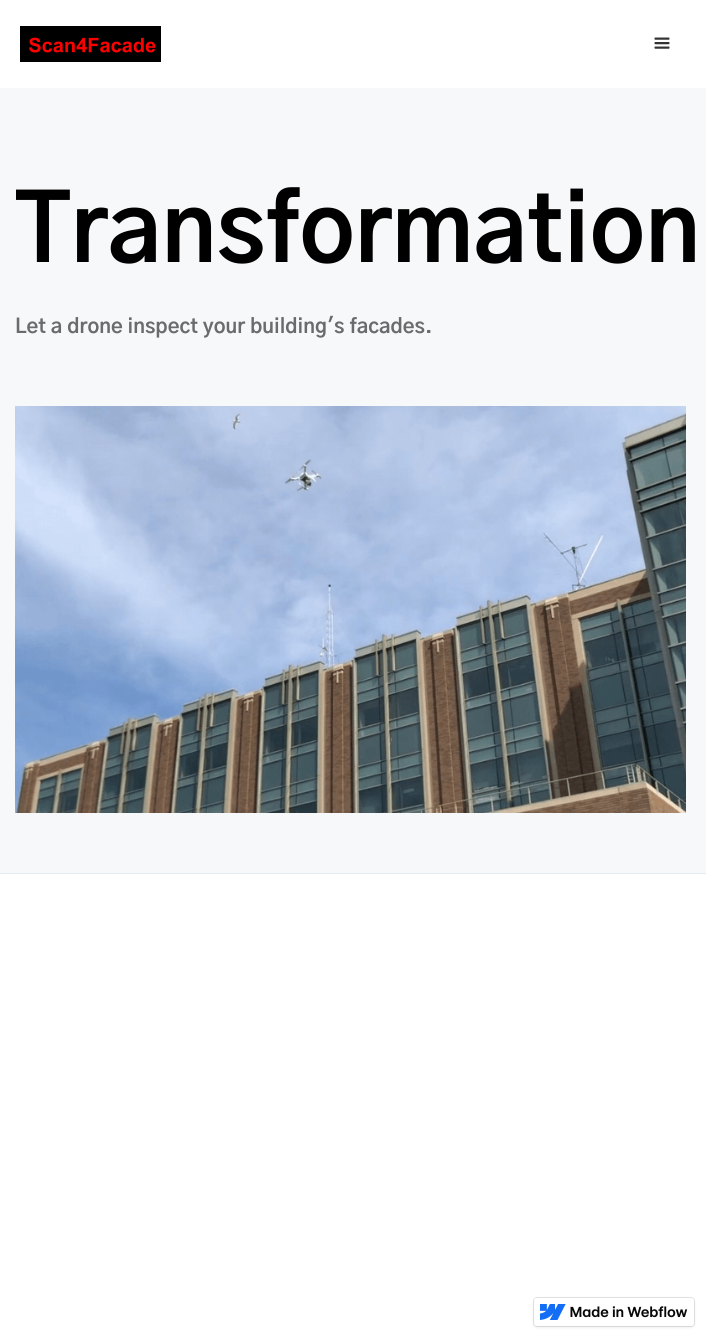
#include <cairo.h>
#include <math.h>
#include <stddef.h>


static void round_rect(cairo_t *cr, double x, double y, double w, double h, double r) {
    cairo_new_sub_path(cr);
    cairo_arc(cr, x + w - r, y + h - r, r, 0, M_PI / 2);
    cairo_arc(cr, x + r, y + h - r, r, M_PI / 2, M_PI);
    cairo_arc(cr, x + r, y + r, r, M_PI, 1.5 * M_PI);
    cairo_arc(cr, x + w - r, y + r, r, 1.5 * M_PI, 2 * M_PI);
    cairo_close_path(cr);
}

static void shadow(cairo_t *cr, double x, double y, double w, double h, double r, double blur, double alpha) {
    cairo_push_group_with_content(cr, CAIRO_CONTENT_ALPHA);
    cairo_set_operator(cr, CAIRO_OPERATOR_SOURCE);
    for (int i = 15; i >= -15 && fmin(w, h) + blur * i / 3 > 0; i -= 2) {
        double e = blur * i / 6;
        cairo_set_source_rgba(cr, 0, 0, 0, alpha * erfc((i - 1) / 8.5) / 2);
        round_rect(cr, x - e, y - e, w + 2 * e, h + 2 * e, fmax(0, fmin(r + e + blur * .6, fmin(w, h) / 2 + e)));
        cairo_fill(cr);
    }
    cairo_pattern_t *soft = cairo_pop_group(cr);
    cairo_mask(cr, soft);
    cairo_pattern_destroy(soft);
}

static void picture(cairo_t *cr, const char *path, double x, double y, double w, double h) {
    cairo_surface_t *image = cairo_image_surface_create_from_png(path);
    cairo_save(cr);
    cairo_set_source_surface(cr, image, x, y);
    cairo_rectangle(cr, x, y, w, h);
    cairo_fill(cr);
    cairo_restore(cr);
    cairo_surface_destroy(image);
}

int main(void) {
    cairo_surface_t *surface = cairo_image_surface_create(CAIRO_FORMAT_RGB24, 706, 1338);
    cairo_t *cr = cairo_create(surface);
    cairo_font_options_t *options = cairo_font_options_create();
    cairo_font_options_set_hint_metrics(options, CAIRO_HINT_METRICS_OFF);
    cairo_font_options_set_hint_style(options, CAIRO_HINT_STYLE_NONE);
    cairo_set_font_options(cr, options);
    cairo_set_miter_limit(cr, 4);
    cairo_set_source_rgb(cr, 1, 1, 1);
    cairo_paint(cr);
    picture(cr, "img1.png", 20, 26, 141, 36);
    picture(cr, "img2.png", 654, 37, 16, 12);
    cairo_set_source_rgb(cr, 0.961, 0.969, 0.98);
    cairo_rectangle(cr, 0, 88, 706, 785);
    cairo_fill(cr);
    cairo_set_source_rgb(cr, 0.894, 0.922, 0.953);
    cairo_rectangle(cr, 0, 873, 706, 1);
    cairo_fill(cr);
    cairo_select_font_face(cr, "Gothic A1", CAIRO_FONT_SLANT_NORMAL, CAIRO_FONT_WEIGHT_BOLD);
    cairo_set_font_size(cr, 93.75);
    cairo_set_source_rgb(cr, 0, 0, 0);
    cairo_move_to(cr, 15, 262);
    cairo_show_text(cr, "Transformation");
    cairo_set_font_size(cr, 20);
    cairo_set_source_rgb(cr, 0.42, 0.42, 0.42);
    cairo_move_to(cr, 15, 333);
    cairo_show_text(cr, "Let a drone inspect your building's facades.");
    picture(cr, "img3.png", 15, 406, 671, 407);
    cairo_set_source_rgb(cr, 0, 0, 0);
    shadow(cr, 534, 1299, 160, 28, 3, 1.5, 0.1);
    round_rect(cr, 533.5, 1297.5, 161, 29, 3.5);
    cairo_set_source_rgba(cr, 0, 0, 0, 0.1);
    cairo_set_line_width(cr, 1);
    cairo_stroke(cr);
    cairo_set_source_rgb(cr, 1, 1, 1);
    round_rect(cr, 534, 1298, 160, 28, 3);
    cairo_fill(cr);
    picture(cr, "img4.png", 540, 1304, 26, 16);
    picture(cr, "img5.png", 570, 1306, 118, 12);
    cairo_surface_write_to_png(surface, "page.png");
    cairo_font_options_destroy(options);
    cairo_destroy(cr);
    cairo_surface_destroy(surface);
    return 0;
}
